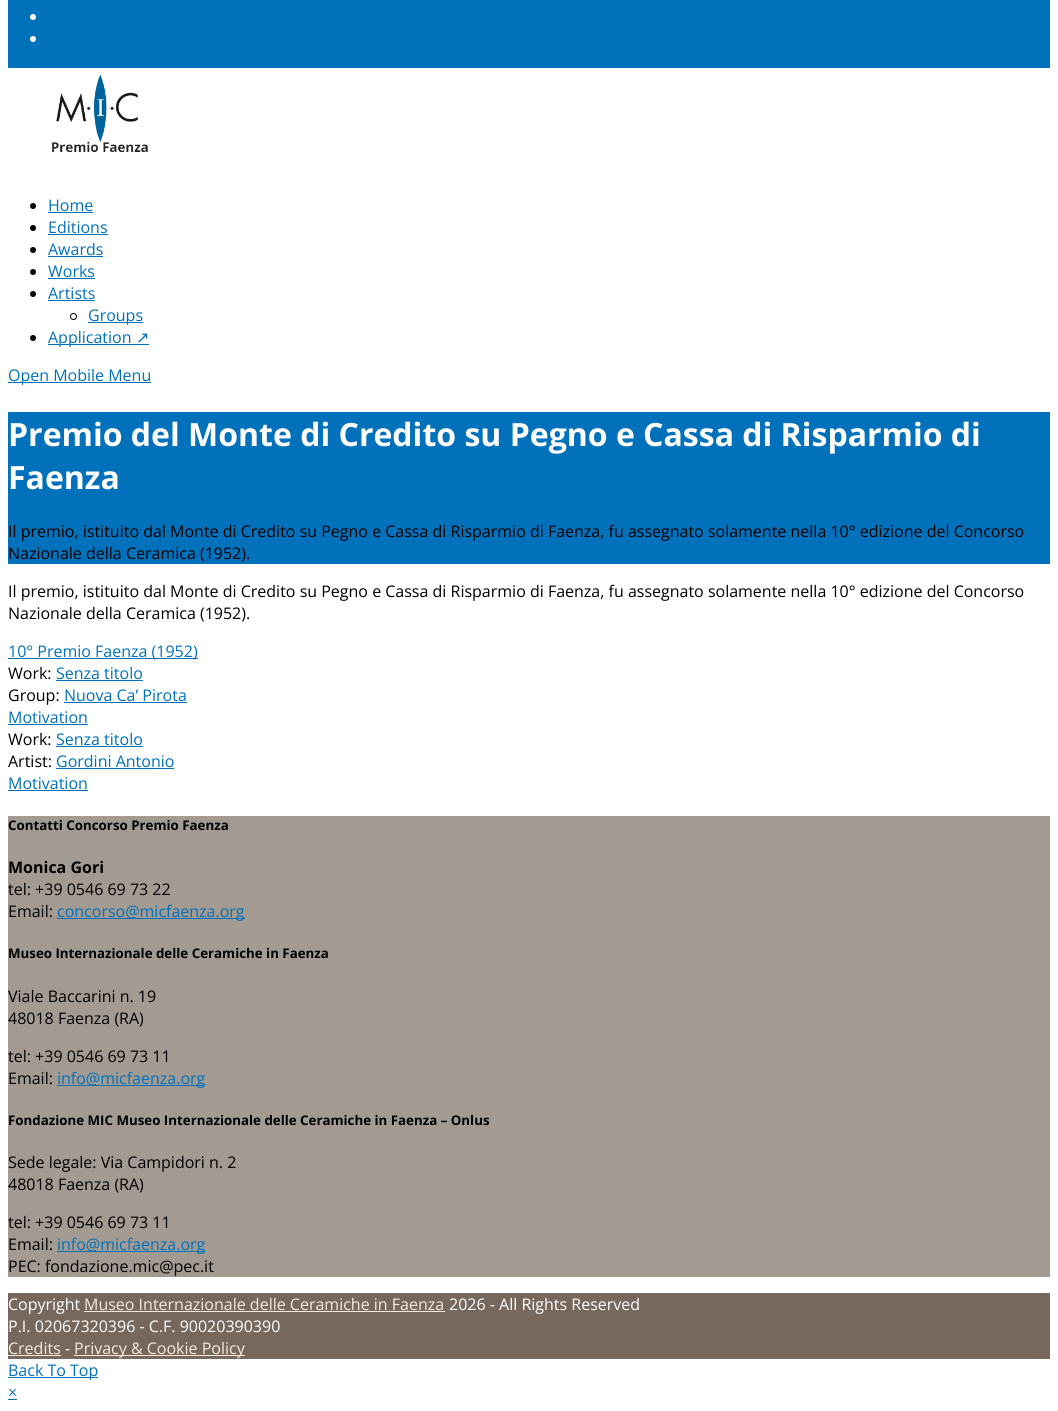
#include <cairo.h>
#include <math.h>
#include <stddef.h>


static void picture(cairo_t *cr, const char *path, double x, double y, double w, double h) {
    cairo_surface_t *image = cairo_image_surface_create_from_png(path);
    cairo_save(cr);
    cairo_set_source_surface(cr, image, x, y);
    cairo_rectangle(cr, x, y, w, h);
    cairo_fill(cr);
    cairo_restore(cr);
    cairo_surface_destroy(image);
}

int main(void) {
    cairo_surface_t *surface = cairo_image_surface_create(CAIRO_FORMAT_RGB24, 1058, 1411);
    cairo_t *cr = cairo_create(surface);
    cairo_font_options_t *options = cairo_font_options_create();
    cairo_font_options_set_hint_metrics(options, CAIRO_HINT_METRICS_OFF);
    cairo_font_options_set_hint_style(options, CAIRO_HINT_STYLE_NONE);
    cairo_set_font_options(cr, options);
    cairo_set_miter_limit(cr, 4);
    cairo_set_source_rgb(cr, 1, 1, 1);
    cairo_paint(cr);
    cairo_set_source_rgb(cr, 0.004, 0.443, 0.733);
    cairo_rectangle(cr, 8, 0, 1042, 68);
    cairo_fill(cr);
    cairo_set_source_rgb(cr, 1, 1, 1);
    cairo_arc(cr, 33, 17, 3, 0, 2 * M_PI);
    cairo_fill(cr);
    cairo_arc(cr, 33, 39, 3, 0, 2 * M_PI);
    cairo_fill(cr);
    picture(cr, "img1.png", 51, 74, 97, 79);
    cairo_set_source_rgb(cr, 0, 0, 0);
    cairo_arc(cr, 33, 206, 3, 0, 2 * M_PI);
    cairo_fill(cr);
    cairo_select_font_face(cr, "Open Sans", CAIRO_FONT_SLANT_NORMAL, CAIRO_FONT_WEIGHT_NORMAL);
    cairo_set_font_size(cr, 16);
    cairo_set_source_rgb(cr, 0.004, 0.443, 0.733);
    cairo_move_to(cr, 48, 211);
    cairo_show_text(cr, "Home");
    cairo_rectangle(cr, 48, 212, 45, 1);
    cairo_fill(cr);
    cairo_set_source_rgb(cr, 0, 0, 0);
    cairo_arc(cr, 33, 228, 3, 0, 2 * M_PI);
    cairo_fill(cr);
    cairo_set_source_rgb(cr, 0.004, 0.443, 0.733);
    cairo_move_to(cr, 48, 233);
    cairo_show_text(cr, "Editions");
    cairo_rectangle(cr, 48, 234, 60, 1);
    cairo_fill(cr);
    cairo_set_source_rgb(cr, 0, 0, 0);
    cairo_arc(cr, 33, 250, 3, 0, 2 * M_PI);
    cairo_fill(cr);
    cairo_set_source_rgb(cr, 0.004, 0.443, 0.733);
    cairo_move_to(cr, 48, 255);
    cairo_show_text(cr, "Awards");
    cairo_rectangle(cr, 48, 256, 55, 1);
    cairo_fill(cr);
    cairo_set_source_rgb(cr, 0, 0, 0);
    cairo_arc(cr, 33, 272, 3, 0, 2 * M_PI);
    cairo_fill(cr);
    cairo_set_source_rgb(cr, 0.004, 0.443, 0.733);
    cairo_move_to(cr, 48, 277);
    cairo_show_text(cr, "Works");
    cairo_rectangle(cr, 48, 278, 47, 1);
    cairo_fill(cr);
    cairo_set_source_rgb(cr, 0, 0, 0);
    cairo_arc(cr, 33, 294, 3, 0, 2 * M_PI);
    cairo_fill(cr);
    cairo_set_source_rgb(cr, 0.004, 0.443, 0.733);
    cairo_move_to(cr, 48, 299);
    cairo_show_text(cr, "Artists");
    cairo_rectangle(cr, 48, 300, 47, 1);
    cairo_fill(cr);
    cairo_arc(cr, 73.5, 316.5, 3, 0, 2 * M_PI);
    cairo_set_source_rgb(cr, 0, 0, 0);
    cairo_set_line_width(cr, 1);
    cairo_stroke(cr);
    cairo_set_source_rgb(cr, 0.004, 0.443, 0.733);
    cairo_rectangle(cr, 88, 322, 55, 1);
    cairo_fill(cr);
    cairo_move_to(cr, 88, 321);
    cairo_show_text(cr, "Groups");
    cairo_set_source_rgb(cr, 0, 0, 0);
    cairo_new_path(cr);
    cairo_arc(cr, 33, 338, 3, 0, 2 * M_PI);
    cairo_fill(cr);
    cairo_set_source_rgb(cr, 0.004, 0.443, 0.733);
    cairo_rectangle(cr, 48, 344, 101, 1);
    cairo_fill(cr);
    cairo_move_to(cr, 48, 343);
    cairo_show_text(cr, "Application");
    cairo_select_font_face(cr, "DejaVu Sans", CAIRO_FONT_SLANT_NORMAL, CAIRO_FONT_WEIGHT_NORMAL);
    cairo_move_to(cr, 136, 343);
    cairo_show_text(cr, "↗");
    cairo_rectangle(cr, 8, 382, 143, 1);
    cairo_fill(cr);
    cairo_select_font_face(cr, "Open Sans", CAIRO_FONT_SLANT_NORMAL, CAIRO_FONT_WEIGHT_NORMAL);
    cairo_move_to(cr, 8, 381);
    cairo_show_text(cr, "Open Mobile Menu");
    cairo_rectangle(cr, 8, 412, 1042, 152);
    cairo_fill(cr);
    cairo_select_font_face(cr, "Open Sans", CAIRO_FONT_SLANT_NORMAL, CAIRO_FONT_WEIGHT_BOLD);
    cairo_set_font_size(cr, 32);
    cairo_set_source_rgb(cr, 1, 1, 1);
    cairo_move_to(cr, 8, 446);
    cairo_show_text(cr, "Premio del Monte di Credito su Pegno e Cassa di Risparmio di");
    cairo_move_to(cr, 8, 489);
    cairo_show_text(cr, "Faenza");
    cairo_select_font_face(cr, "Open Sans", CAIRO_FONT_SLANT_NORMAL, CAIRO_FONT_WEIGHT_NORMAL);
    cairo_set_font_size(cr, 16);
    cairo_set_source_rgb(cr, 0, 0, 0);
    cairo_move_to(cr, 8, 537);
    cairo_show_text(cr, "Il premio, istituito dal Monte di Credito su Pegno e Cassa di Risparmio di Faenza, fu assegnato solamente nella 10° edizione del Concorso");
    cairo_move_to(cr, 8, 559);
    cairo_show_text(cr, "Nazionale della Ceramica (1952).");
    cairo_move_to(cr, 8, 597);
    cairo_show_text(cr, "Il premio, istituito dal Monte di Credito su Pegno e Cassa di Risparmio di Faenza, fu assegnato solamente nella 10° edizione del Concorso");
    cairo_move_to(cr, 8, 619);
    cairo_show_text(cr, "Nazionale della Ceramica (1952).");
    cairo_set_source_rgb(cr, 0.004, 0.443, 0.733);
    cairo_rectangle(cr, 8, 658, 190, 1);
    cairo_fill(cr);
    cairo_move_to(cr, 8, 657);
    cairo_show_text(cr, "10° Premio Faenza (1952)");
    cairo_set_source_rgb(cr, 0, 0, 0);
    cairo_move_to(cr, 8, 679);
    cairo_show_text(cr, "Work:");
    cairo_set_source_rgb(cr, 0.004, 0.443, 0.733);
    cairo_move_to(cr, 56, 679);
    cairo_show_text(cr, "Senza titolo");
    cairo_rectangle(cr, 56, 680, 87, 1);
    cairo_fill(cr);
    cairo_set_source_rgb(cr, 0, 0, 0);
    cairo_move_to(cr, 8, 701);
    cairo_show_text(cr, "Group:");
    cairo_set_source_rgb(cr, 0.004, 0.443, 0.733);
    cairo_move_to(cr, 64, 701);
    cairo_show_text(cr, "Nuova Ca’ Pirota");
    cairo_rectangle(cr, 64, 702, 123, 1);
    cairo_fill(cr);
    cairo_move_to(cr, 8, 723);
    cairo_show_text(cr, "Motivation");
    cairo_rectangle(cr, 8, 724, 80, 1);
    cairo_fill(cr);
    cairo_set_source_rgb(cr, 0, 0, 0);
    cairo_move_to(cr, 8, 745);
    cairo_show_text(cr, "Work:");
    cairo_set_source_rgb(cr, 0.004, 0.443, 0.733);
    cairo_move_to(cr, 56, 745);
    cairo_show_text(cr, "Senza titolo");
    cairo_rectangle(cr, 56, 746, 87, 1);
    cairo_fill(cr);
    cairo_set_source_rgb(cr, 0, 0, 0);
    cairo_move_to(cr, 8, 767);
    cairo_show_text(cr, "Artist:");
    cairo_set_source_rgb(cr, 0.004, 0.443, 0.733);
    cairo_move_to(cr, 56, 767);
    cairo_show_text(cr, "Gordini Antonio");
    cairo_rectangle(cr, 56, 768, 118, 1);
    cairo_fill(cr);
    cairo_move_to(cr, 8, 789);
    cairo_show_text(cr, "Motivation");
    cairo_rectangle(cr, 8, 790, 80, 1);
    cairo_fill(cr);
    cairo_set_source_rgb(cr, 0.639, 0.604, 0.573);
    cairo_rectangle(cr, 8, 816, 1042, 461);
    cairo_fill(cr);
    cairo_select_font_face(cr, "Open Sans", CAIRO_FONT_SLANT_NORMAL, CAIRO_FONT_WEIGHT_BOLD);
    cairo_set_font_size(cr, 13.3);
    cairo_set_source_rgb(cr, 0, 0, 0);
    cairo_move_to(cr, 8, 830);
    cairo_show_text(cr, "Contatti Concorso Premio Faenza");
    cairo_set_font_size(cr, 16);
    cairo_move_to(cr, 8, 873);
    cairo_show_text(cr, "Monica Gori");
    cairo_select_font_face(cr, "Open Sans", CAIRO_FONT_SLANT_NORMAL, CAIRO_FONT_WEIGHT_NORMAL);
    cairo_move_to(cr, 8, 895);
    cairo_show_text(cr, "tel: +39 0546 69 73 22");
    cairo_move_to(cr, 8, 917);
    cairo_show_text(cr, "Email:");
    cairo_set_source_rgb(cr, 0.004, 0.443, 0.733);
    cairo_rectangle(cr, 57, 918, 188, 1);
    cairo_fill(cr);
    cairo_move_to(cr, 57, 917);
    cairo_show_text(cr, "concorso@micfaenza.org");
    cairo_select_font_face(cr, "Open Sans", CAIRO_FONT_SLANT_NORMAL, CAIRO_FONT_WEIGHT_BOLD);
    cairo_set_font_size(cr, 13.3);
    cairo_set_source_rgb(cr, 0, 0, 0);
    cairo_move_to(cr, 8, 958);
    cairo_show_text(cr, "Museo Internazionale delle Ceramiche in Faenza");
    cairo_select_font_face(cr, "Open Sans", CAIRO_FONT_SLANT_NORMAL, CAIRO_FONT_WEIGHT_NORMAL);
    cairo_set_font_size(cr, 16);
    cairo_move_to(cr, 8, 1002);
    cairo_show_text(cr, "Viale Baccarini n. 19");
    cairo_move_to(cr, 8, 1024);
    cairo_show_text(cr, "48018 Faenza (RA)");
    cairo_move_to(cr, 8, 1062);
    cairo_show_text(cr, "tel: +39 0546 69 73 11");
    cairo_move_to(cr, 8, 1084);
    cairo_show_text(cr, "Email:");
    cairo_set_source_rgb(cr, 0.004, 0.443, 0.733);
    cairo_rectangle(cr, 57, 1085, 148, 1);
    cairo_fill(cr);
    cairo_move_to(cr, 57, 1084);
    cairo_show_text(cr, "info@micfaenza.org");
    cairo_select_font_face(cr, "Open Sans", CAIRO_FONT_SLANT_NORMAL, CAIRO_FONT_WEIGHT_BOLD);
    cairo_set_font_size(cr, 13.3);
    cairo_set_source_rgb(cr, 0, 0, 0);
    cairo_move_to(cr, 8, 1125);
    cairo_show_text(cr, "Fondazione MIC Museo Internazionale delle Ceramiche in Faenza – Onlus");
    cairo_select_font_face(cr, "Open Sans", CAIRO_FONT_SLANT_NORMAL, CAIRO_FONT_WEIGHT_NORMAL);
    cairo_set_font_size(cr, 16);
    cairo_move_to(cr, 8, 1168);
    cairo_show_text(cr, "Sede legale: Via Campidori n. 2");
    cairo_move_to(cr, 8, 1190);
    cairo_show_text(cr, "48018 Faenza (RA)");
    cairo_move_to(cr, 8, 1228);
    cairo_show_text(cr, "tel: +39 0546 69 73 11");
    cairo_move_to(cr, 8, 1250);
    cairo_show_text(cr, "Email:");
    cairo_set_source_rgb(cr, 0.004, 0.443, 0.733);
    cairo_rectangle(cr, 57, 1251, 148, 1);
    cairo_fill(cr);
    cairo_move_to(cr, 57, 1250);
    cairo_show_text(cr, "info@micfaenza.org");
    cairo_set_source_rgb(cr, 0, 0, 0);
    cairo_move_to(cr, 8, 1272);
    cairo_show_text(cr, "PEC: fondazione.mic@pec.it");
    cairo_set_source_rgb(cr, 0.467, 0.408, 0.365);
    cairo_rectangle(cr, 8, 1293, 1042, 66);
    cairo_fill(cr);
    cairo_set_source_rgb(cr, 1, 1, 1);
    cairo_move_to(cr, 8, 1310);
    cairo_show_text(cr, "Copyright");
    cairo_set_source_rgb(cr, 0.957, 0.922, 0.851);
    cairo_move_to(cr, 84, 1310);
    cairo_show_text(cr, "Museo Internazionale delle Ceramiche in Faenza");
    cairo_rectangle(cr, 84, 1311, 361, 1);
    cairo_fill(cr);
    cairo_set_source_rgb(cr, 1, 1, 1);
    cairo_move_to(cr, 449, 1310);
    cairo_show_text(cr, "2026 - All Rights Reserved");
    cairo_move_to(cr, 8, 1332);
    cairo_show_text(cr, "P.I. 02067320396 - C.F. 90020390390");
    cairo_set_source_rgb(cr, 0.957, 0.922, 0.851);
    cairo_move_to(cr, 8, 1354);
    cairo_show_text(cr, "Credits");
    cairo_rectangle(cr, 8, 1355, 53, 1);
    cairo_fill(cr);
    cairo_set_source_rgb(cr, 1, 1, 1);
    cairo_move_to(cr, 65, 1354);
    cairo_show_text(cr, "-");
    cairo_set_source_rgb(cr, 0.957, 0.922, 0.851);
    cairo_rectangle(cr, 74, 1355, 171, 1);
    cairo_fill(cr);
    cairo_move_to(cr, 74, 1354);
    cairo_show_text(cr, "Privacy & Cookie Policy");
    cairo_set_source_rgb(cr, 0.004, 0.443, 0.733);
    cairo_rectangle(cr, 8, 1377, 90, 1);
    cairo_fill(cr);
    cairo_move_to(cr, 8, 1376);
    cairo_show_text(cr, "Back To Top");
    cairo_move_to(cr, 8, 1398);
    cairo_show_text(cr, "×");
    cairo_rectangle(cr, 8, 1399, 9, 1);
    cairo_fill(cr);
    cairo_surface_write_to_png(surface, "page.png");
    cairo_font_options_destroy(options);
    cairo_destroy(cr);
    cairo_surface_destroy(surface);
    return 0;
}
